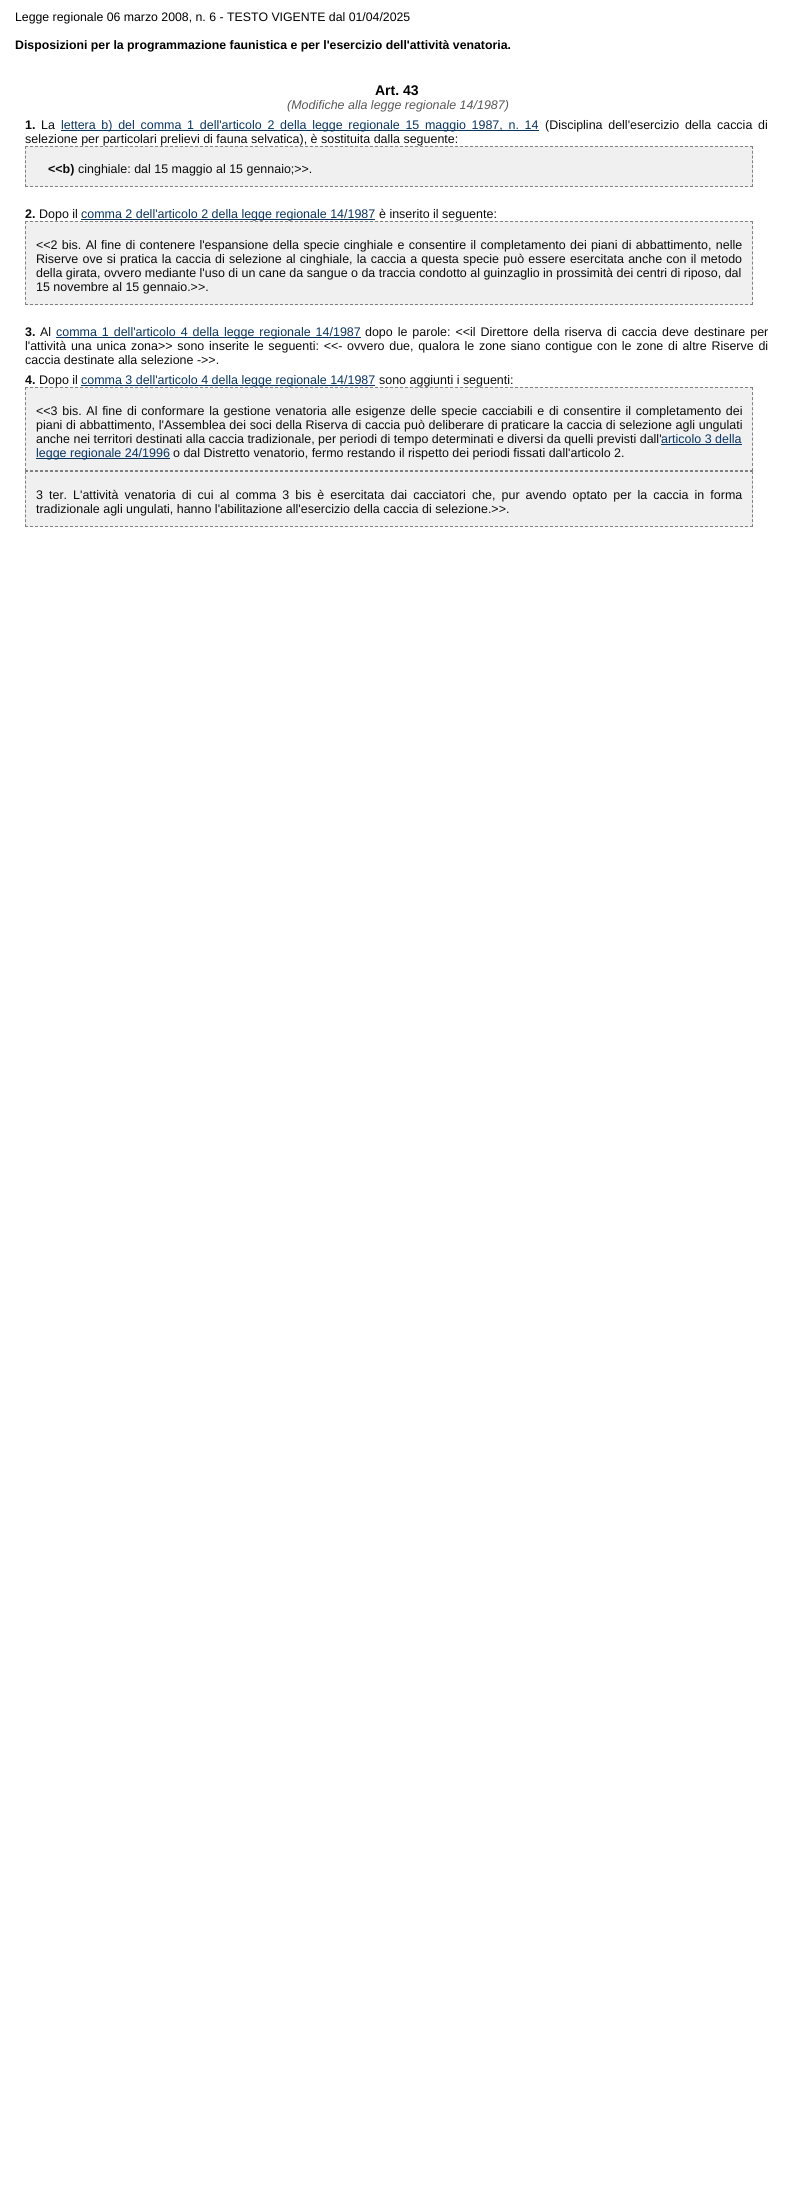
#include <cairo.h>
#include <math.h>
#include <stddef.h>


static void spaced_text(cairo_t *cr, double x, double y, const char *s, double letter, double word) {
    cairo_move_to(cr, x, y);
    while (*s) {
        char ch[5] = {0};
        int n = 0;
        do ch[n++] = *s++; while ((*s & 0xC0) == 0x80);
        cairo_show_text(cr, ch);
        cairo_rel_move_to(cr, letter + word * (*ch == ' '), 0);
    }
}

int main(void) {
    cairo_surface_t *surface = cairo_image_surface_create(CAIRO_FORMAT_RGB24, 793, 2197);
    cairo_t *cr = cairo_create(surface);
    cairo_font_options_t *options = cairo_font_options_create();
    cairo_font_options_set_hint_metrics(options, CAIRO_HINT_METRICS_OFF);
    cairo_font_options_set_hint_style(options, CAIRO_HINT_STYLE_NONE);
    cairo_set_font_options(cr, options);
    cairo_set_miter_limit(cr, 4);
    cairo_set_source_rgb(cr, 1, 1, 1);
    cairo_paint(cr);
    cairo_select_font_face(cr, "Liberation Sans", CAIRO_FONT_SLANT_NORMAL, CAIRO_FONT_WEIGHT_NORMAL);
    cairo_set_font_size(cr, 12.3);
    cairo_set_source_rgb(cr, 0, 0, 0);
    cairo_move_to(cr, 15, 21);
    cairo_show_text(cr, "Legge regionale 06 marzo 2008, n. 6 - TESTO VIGENTE dal 01/04/2025");
    cairo_select_font_face(cr, "Liberation Sans", CAIRO_FONT_SLANT_NORMAL, CAIRO_FONT_WEIGHT_BOLD);
    cairo_move_to(cr, 15, 49);
    cairo_show_text(cr, "Disposizioni per la programmazione faunistica e per l'esercizio dell'attività venatoria.");
    cairo_set_font_size(cr, 14);
    cairo_move_to(cr, 375, 95);
    cairo_show_text(cr, "Art. 43");
    cairo_select_font_face(cr, "Liberation Sans", CAIRO_FONT_SLANT_ITALIC, CAIRO_FONT_WEIGHT_NORMAL);
    cairo_set_font_size(cr, 12.47);
    cairo_set_source_rgb(cr, 0.349, 0.341, 0.341);
    cairo_move_to(cr, 287, 109);
    cairo_show_text(cr, "(Modifiche alla legge regionale 14/1987)");
    cairo_select_font_face(cr, "Liberation Sans", CAIRO_FONT_SLANT_NORMAL, CAIRO_FONT_WEIGHT_NORMAL);
    cairo_set_source_rgb(cr, 0.043, 0.043, 0.043);
    cairo_move_to(cr, 41, 129);
    cairo_show_text(cr, "La");
    cairo_set_source_rgb(cr, 0.039, 0.208, 0.376);
    cairo_rectangle(cr, 61, 130, 478, 1);
    cairo_fill(cr);
    spaced_text(cr, 61, 129, "lettera b) del comma 1 dell'articolo 2 della legge regionale 15 maggio 1987, n. 14", 0, 2.25);
    cairo_set_source_rgb(cr, 0.043, 0.043, 0.043);
    spaced_text(cr, 545, 129, "(Disciplina dell'esercizio della caccia di", 0, 2.25);
    cairo_move_to(cr, 25, 143);
    cairo_show_text(cr, "selezione per particolari prelievi di fauna selvatica), è sostituita dalla seguente:");
    cairo_set_source_rgb(cr, 0.941, 0.941, 0.941);
    cairo_rectangle(cr, 25, 146, 728, 41);
    cairo_fill(cr);
    cairo_new_path(cr);
    cairo_move_to(cr, 25, 146.5);
    cairo_line_to(cr, 753, 146.5);
    cairo_set_source_rgb(cr, 0.502, 0.502, 0.502);
    cairo_set_line_width(cr, 1);
    cairo_set_dash(cr, (double[]){3, 2}, 2, 0);
    cairo_stroke(cr);
    cairo_new_path(cr);
    cairo_move_to(cr, 752.5, 146);
    cairo_line_to(cr, 752.5, 187);
    cairo_set_dash(cr, (double[]){3, 1.75}, 2, 0);
    cairo_stroke(cr);
    cairo_new_path(cr);
    cairo_move_to(cr, 25, 186.5);
    cairo_line_to(cr, 753, 186.5);
    cairo_set_dash(cr, (double[]){3, 2}, 2, 0);
    cairo_stroke(cr);
    cairo_new_path(cr);
    cairo_move_to(cr, 25.5, 146);
    cairo_line_to(cr, 25.5, 187);
    cairo_set_dash(cr, (double[]){3, 1.75}, 2, 0);
    cairo_stroke(cr);
    cairo_select_font_face(cr, "Liberation Sans", CAIRO_FONT_SLANT_NORMAL, CAIRO_FONT_WEIGHT_BOLD);
    cairo_set_source_rgb(cr, 0.043, 0.043, 0.043);
    cairo_move_to(cr, 48, 173);
    cairo_show_text(cr, "<<b)");
    cairo_select_font_face(cr, "Liberation Sans", CAIRO_FONT_SLANT_NORMAL, CAIRO_FONT_WEIGHT_NORMAL);
    cairo_move_to(cr, 78, 173);
    cairo_show_text(cr, "cinghiale: dal 15 maggio al 15 gennaio;>>.");
    cairo_select_font_face(cr, "Liberation Sans", CAIRO_FONT_SLANT_NORMAL, CAIRO_FONT_WEIGHT_BOLD);
    cairo_move_to(cr, 25, 129);
    cairo_show_text(cr, "1.");
    cairo_move_to(cr, 25, 218);
    cairo_show_text(cr, "2.");
    cairo_select_font_face(cr, "Liberation Sans", CAIRO_FONT_SLANT_NORMAL, CAIRO_FONT_WEIGHT_NORMAL);
    cairo_move_to(cr, 39, 218);
    cairo_show_text(cr, "Dopo il");
    cairo_set_source_rgb(cr, 0.039, 0.208, 0.376);
    cairo_rectangle(cr, 81, 219, 294, 1);
    cairo_fill(cr);
    cairo_move_to(cr, 81, 218);
    cairo_show_text(cr, "comma 2 dell'articolo 2 della legge regionale 14/1987");
    cairo_set_source_rgb(cr, 0.043, 0.043, 0.043);
    cairo_move_to(cr, 379, 218);
    cairo_show_text(cr, "è inserito il seguente:");
    cairo_set_source_rgb(cr, 0.941, 0.941, 0.941);
    cairo_rectangle(cr, 25, 221, 728, 84);
    cairo_fill(cr);
    cairo_new_path(cr);
    cairo_move_to(cr, 25, 221.5);
    cairo_line_to(cr, 753, 221.5);
    cairo_set_source_rgb(cr, 0.502, 0.502, 0.502);
    cairo_set_dash(cr, (double[]){3, 2}, 2, 0);
    cairo_stroke(cr);
    cairo_new_path(cr);
    cairo_move_to(cr, 752.5, 221);
    cairo_line_to(cr, 752.5, 305);
    cairo_set_dash(cr, (double[]){3, 2.06}, 2, 0);
    cairo_stroke(cr);
    cairo_new_path(cr);
    cairo_move_to(cr, 25, 304.5);
    cairo_line_to(cr, 753, 304.5);
    cairo_set_dash(cr, (double[]){3, 2}, 2, 0);
    cairo_stroke(cr);
    cairo_new_path(cr);
    cairo_move_to(cr, 25.5, 221);
    cairo_line_to(cr, 25.5, 305);
    cairo_set_dash(cr, (double[]){3, 2.06}, 2, 0);
    cairo_stroke(cr);
    cairo_set_source_rgb(cr, 0.043, 0.043, 0.043);
    spaced_text(cr, 36, 249, "<<2 bis. Al fine di contenere l'espansione della specie cinghiale e consentire il completamento dei piani di abbattimento, nelle", 0, 0.9);
    spaced_text(cr, 36, 263, "Riserve ove si pratica la caccia di selezione al cinghiale, la caccia a questa specie può essere esercitata anche con il metodo", 0, 0.75);
    cairo_move_to(cr, 36, 277);
    cairo_show_text(cr, "della girata, ovvero mediante l'uso di un cane da sangue o da traccia condotto al guinzaglio in prossimità dei centri di riposo, dal");
    cairo_move_to(cr, 36, 291);
    cairo_show_text(cr, "15 novembre al 15 gennaio.>>.");
    cairo_select_font_face(cr, "Liberation Sans", CAIRO_FONT_SLANT_NORMAL, CAIRO_FONT_WEIGHT_BOLD);
    cairo_move_to(cr, 25, 336);
    cairo_show_text(cr, "3.");
    cairo_select_font_face(cr, "Liberation Sans", CAIRO_FONT_SLANT_NORMAL, CAIRO_FONT_WEIGHT_NORMAL);
    cairo_move_to(cr, 40, 336);
    cairo_show_text(cr, "Al");
    cairo_set_source_rgb(cr, 0.039, 0.208, 0.376);
    cairo_rectangle(cr, 56, 337, 305, 1);
    cairo_fill(cr);
    spaced_text(cr, 56, 336, "comma 1 dell'articolo 4 della legge regionale 14/1987", 0, 1.5);
    cairo_set_source_rgb(cr, 0.043, 0.043, 0.043);
    spaced_text(cr, 365, 336, "dopo le parole: <<il Direttore della riserva di caccia deve destinare per", 0, 1.5);
    spaced_text(cr, 25, 350, "l'attività una unica zona>> sono inserite le seguenti: <<- ovvero due, qualora le zone siano contigue con le zone di altre Riserve di", 0, 1.25);
    cairo_move_to(cr, 25, 364);
    cairo_show_text(cr, "caccia destinate alla selezione ->>.");
    cairo_select_font_face(cr, "Liberation Sans", CAIRO_FONT_SLANT_NORMAL, CAIRO_FONT_WEIGHT_BOLD);
    cairo_move_to(cr, 25, 384);
    cairo_show_text(cr, "4.");
    cairo_select_font_face(cr, "Liberation Sans", CAIRO_FONT_SLANT_NORMAL, CAIRO_FONT_WEIGHT_NORMAL);
    cairo_move_to(cr, 39, 384);
    cairo_show_text(cr, "Dopo il");
    cairo_set_source_rgb(cr, 0.039, 0.208, 0.376);
    cairo_rectangle(cr, 81, 385, 294, 1);
    cairo_fill(cr);
    cairo_move_to(cr, 81, 384);
    cairo_show_text(cr, "comma 3 dell'articolo 4 della legge regionale 14/1987");
    cairo_set_source_rgb(cr, 0.043, 0.043, 0.043);
    cairo_move_to(cr, 379, 384);
    cairo_show_text(cr, "sono aggiunti i seguenti:");
    cairo_set_source_rgb(cr, 0.941, 0.941, 0.941);
    cairo_rectangle(cr, 25, 387, 728, 140);
    cairo_fill(cr);
    cairo_new_path(cr);
    cairo_move_to(cr, 25, 387.5);
    cairo_line_to(cr, 753, 387.5);
    cairo_set_source_rgb(cr, 0.502, 0.502, 0.502);
    cairo_set_dash(cr, (double[]){3, 2}, 2, 0);
    cairo_stroke(cr);
    cairo_new_path(cr);
    cairo_move_to(cr, 752.5, 387);
    cairo_line_to(cr, 752.5, 471);
    cairo_set_dash(cr, (double[]){3, 2.06}, 2, 0);
    cairo_stroke(cr);
    cairo_new_path(cr);
    cairo_move_to(cr, 25, 470.5);
    cairo_line_to(cr, 753, 470.5);
    cairo_set_dash(cr, (double[]){3, 2}, 2, 0);
    cairo_stroke(cr);
    cairo_new_path(cr);
    cairo_move_to(cr, 25.5, 387);
    cairo_line_to(cr, 25.5, 471);
    cairo_set_dash(cr, (double[]){3, 2.06}, 2, 0);
    cairo_stroke(cr);
    cairo_set_source_rgb(cr, 0.043, 0.043, 0.043);
    spaced_text(cr, 36, 415, "<<3 bis. Al fine di conformare la gestione venatoria alle esigenze delle specie cacciabili e di consentire il completamento dei", 0, 1.25);
    spaced_text(cr, 36, 429, "piani di abbattimento, l'Assemblea dei soci della Riserva di caccia può deliberare di praticare la caccia di selezione agli ungulati", 0, 0.25);
    cairo_move_to(cr, 36, 443);
    cairo_show_text(cr, "anche nei territori destinati alla caccia tradizionale, per periodi di tempo determinati e diversi da quelli previsti dall'");
    cairo_set_source_rgb(cr, 0.039, 0.208, 0.376);
    cairo_move_to(cr, 661, 443);
    cairo_show_text(cr, "articolo 3 della");
    cairo_rectangle(cr, 661, 444, 81, 1);
    cairo_fill(cr);
    cairo_rectangle(cr, 36, 458, 134, 1);
    cairo_fill(cr);
    cairo_move_to(cr, 36, 457);
    cairo_show_text(cr, "legge regionale 24/1996");
    cairo_set_source_rgb(cr, 0.043, 0.043, 0.043);
    cairo_move_to(cr, 173, 457);
    cairo_show_text(cr, "o dal Distretto venatorio, fermo restando il rispetto dei periodi fissati dall'articolo 2.");
    cairo_new_path(cr);
    cairo_move_to(cr, 25, 471.5);
    cairo_line_to(cr, 753, 471.5);
    cairo_set_source_rgb(cr, 0.502, 0.502, 0.502);
    cairo_set_dash(cr, (double[]){3, 2}, 2, 0);
    cairo_stroke(cr);
    cairo_new_path(cr);
    cairo_move_to(cr, 752.5, 471);
    cairo_line_to(cr, 752.5, 527);
    cairo_set_dash(cr, (double[]){3, 1.82}, 2, 0);
    cairo_stroke(cr);
    cairo_new_path(cr);
    cairo_move_to(cr, 25, 526.5);
    cairo_line_to(cr, 753, 526.5);
    cairo_set_dash(cr, (double[]){3, 2}, 2, 0);
    cairo_stroke(cr);
    cairo_new_path(cr);
    cairo_move_to(cr, 25.5, 471);
    cairo_line_to(cr, 25.5, 527);
    cairo_set_dash(cr, (double[]){3, 1.82}, 2, 0);
    cairo_stroke(cr);
    cairo_set_source_rgb(cr, 0.043, 0.043, 0.043);
    spaced_text(cr, 36, 499, "3 ter. L'attività venatoria di cui al comma 3 bis è esercitata dai cacciatori che, pur avendo optato per la caccia in forma", 0, 2.6);
    cairo_move_to(cr, 36, 513);
    cairo_show_text(cr, "tradizionale agli ungulati, hanno l'abilitazione all'esercizio della caccia di selezione.>>.");
    cairo_surface_write_to_png(surface, "page.png");
    cairo_font_options_destroy(options);
    cairo_destroy(cr);
    cairo_surface_destroy(surface);
    return 0;
}
